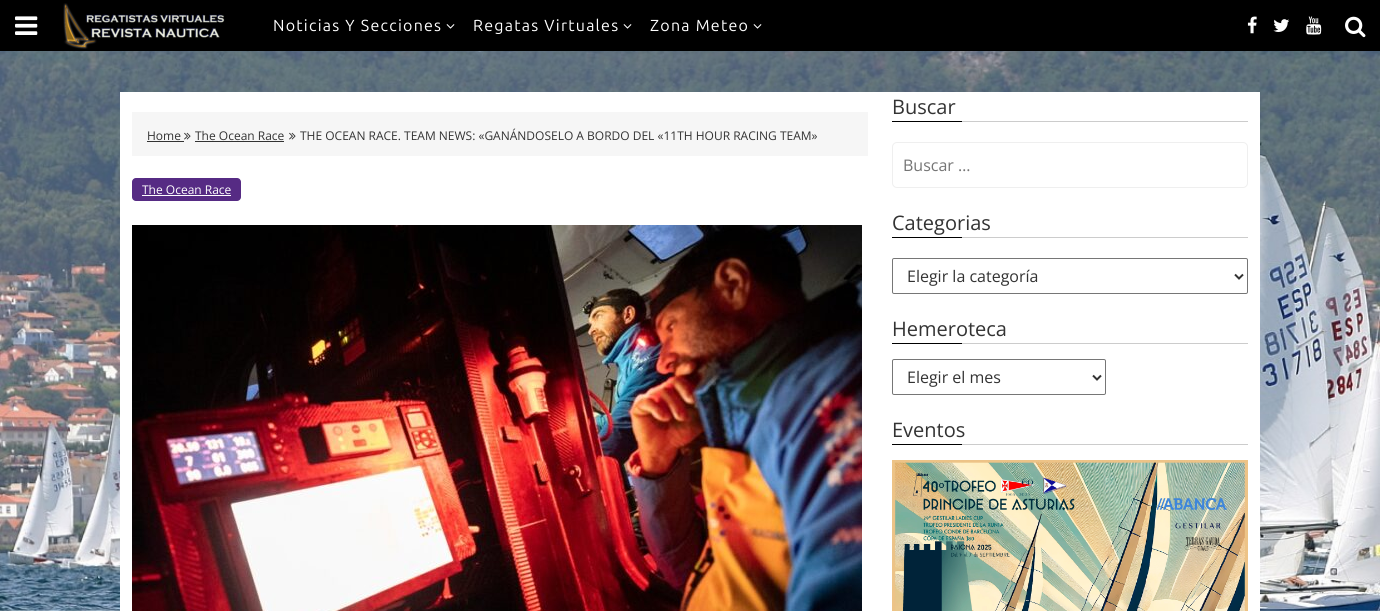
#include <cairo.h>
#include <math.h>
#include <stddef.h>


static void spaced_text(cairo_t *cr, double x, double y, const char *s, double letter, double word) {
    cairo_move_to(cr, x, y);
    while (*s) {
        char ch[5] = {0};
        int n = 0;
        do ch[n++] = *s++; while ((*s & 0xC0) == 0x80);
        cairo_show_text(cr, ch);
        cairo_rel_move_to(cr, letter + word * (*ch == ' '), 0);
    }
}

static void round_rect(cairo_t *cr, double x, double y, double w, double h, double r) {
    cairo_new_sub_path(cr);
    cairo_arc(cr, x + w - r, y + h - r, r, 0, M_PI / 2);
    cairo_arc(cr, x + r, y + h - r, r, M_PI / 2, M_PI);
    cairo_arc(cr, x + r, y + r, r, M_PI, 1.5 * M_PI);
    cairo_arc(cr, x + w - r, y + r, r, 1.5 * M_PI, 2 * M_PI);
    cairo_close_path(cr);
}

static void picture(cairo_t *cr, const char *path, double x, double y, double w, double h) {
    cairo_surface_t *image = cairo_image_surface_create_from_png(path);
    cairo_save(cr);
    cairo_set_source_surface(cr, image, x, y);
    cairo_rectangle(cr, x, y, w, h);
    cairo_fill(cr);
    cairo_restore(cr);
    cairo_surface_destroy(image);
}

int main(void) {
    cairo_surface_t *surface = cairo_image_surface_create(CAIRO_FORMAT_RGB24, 1380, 611);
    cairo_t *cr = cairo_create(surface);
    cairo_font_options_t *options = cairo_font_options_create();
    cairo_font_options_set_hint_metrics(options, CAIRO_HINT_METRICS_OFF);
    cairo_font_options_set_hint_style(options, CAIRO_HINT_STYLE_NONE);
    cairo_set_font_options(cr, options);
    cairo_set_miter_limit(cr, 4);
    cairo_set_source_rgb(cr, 1, 1, 1);
    cairo_paint(cr);
    picture(cr, "img1.png", 0, 51, 1380, 560);
    cairo_set_source_rgb(cr, 0, 0, 0);
    cairo_rectangle(cr, 0, 0, 1380, 51);
    cairo_fill(cr);
    picture(cr, "img2.png", 15, 16, 23, 19);
    picture(cr, "img3.png", 63, 3, 162, 46);
    cairo_select_font_face(cr, "Ubuntu", CAIRO_FONT_SLANT_NORMAL, CAIRO_FONT_WEIGHT_NORMAL);
    cairo_set_font_size(cr, 16);
    cairo_set_source_rgb(cr, 1, 1, 1);
    spaced_text(cr, 273, 31, "Noticias Y Secciones", 1.25, 0);
    picture(cr, "img4.png", 446, 24, 9, 5);
    spaced_text(cr, 473, 31, "Regatas Virtuales", 1.25, 0);
    picture(cr, "img4.png", 623, 24, 9, 5);
    spaced_text(cr, 650, 31, "Zona Meteo", 1.25, 0);
    picture(cr, "img4.png", 753, 24, 9, 5);
    picture(cr, "img5.png", 1247, 16, 10, 18);
    picture(cr, "img6.png", 1273, 19, 17, 13);
    picture(cr, "img7.png", 1306, 16, 16, 19);
    picture(cr, "img8.png", 1345, 16, 21, 22);
    cairo_rectangle(cr, 120, 92, 1140, 519);
    cairo_fill(cr);
    cairo_set_source_rgb(cr, 0.961, 0.961, 0.961);
    cairo_rectangle(cr, 132, 112, 736, 44);
    cairo_fill(cr);
    cairo_select_font_face(cr, "Open Sans", CAIRO_FONT_SLANT_NORMAL, CAIRO_FONT_WEIGHT_NORMAL);
    cairo_set_font_size(cr, 12);
    cairo_set_source_rgb(cr, 0.2, 0.2, 0.2);
    cairo_move_to(cr, 147, 140);
    cairo_show_text(cr, "Home");
    cairo_rectangle(cr, 147, 141, 37, 1);
    cairo_fill(cr);
    picture(cr, "img9.png", 184, 132, 7, 8);
    cairo_move_to(cr, 195, 140);
    cairo_show_text(cr, "The Ocean Race");
    cairo_rectangle(cr, 195, 141, 89, 1);
    cairo_fill(cr);
    picture(cr, "img9.png", 289, 132, 7, 8);
    cairo_move_to(cr, 300, 140);
    cairo_show_text(cr, "THE OCEAN RACE. TEAM NEWS: «GANÁNDOSELO A BORDO DEL «11TH HOUR RACING TEAM»");
    cairo_set_source_rgb(cr, 0.337, 0.169, 0.518);
    round_rect(cr, 132, 178, 109, 23, 4);
    cairo_fill(cr);
    cairo_set_source_rgb(cr, 1, 1, 1);
    cairo_move_to(cr, 142, 194);
    cairo_show_text(cr, "The Ocean Race");
    cairo_rectangle(cr, 142, 195, 89, 1);
    cairo_fill(cr);
    picture(cr, "img10.png", 132, 225, 730, 386);
    cairo_set_font_size(cr, 20);
    cairo_set_source_rgb(cr, 0.2, 0.2, 0.2);
    cairo_move_to(cr, 892, 114);
    cairo_show_text(cr, "Buscar");
    cairo_set_source_rgb(cr, 0, 0, 0);
    cairo_rectangle(cr, 892, 121, 70, 1);
    cairo_fill(cr);
    cairo_set_source_rgb(cr, 0.8, 0.8, 0.8);
    cairo_rectangle(cr, 962, 121, 286, 1);
    cairo_fill(cr);
    round_rect(cr, 892.5, 142.5, 355, 45, 4.5);
    cairo_set_source_rgb(cr, 0.937, 0.937, 0.937);
    cairo_set_line_width(cr, 1);
    cairo_stroke(cr);
    cairo_set_font_size(cr, 16);
    cairo_set_source_rgb(cr, 0.459, 0.459, 0.459);
    cairo_move_to(cr, 903, 171);
    cairo_show_text(cr, "Buscar …");
    cairo_set_font_size(cr, 20);
    cairo_set_source_rgb(cr, 0.2, 0.2, 0.2);
    cairo_move_to(cr, 892, 230);
    cairo_show_text(cr, "Categorias");
    cairo_set_source_rgb(cr, 0, 0, 0);
    cairo_rectangle(cr, 892, 237, 70, 1);
    cairo_fill(cr);
    cairo_set_source_rgb(cr, 0.8, 0.8, 0.8);
    cairo_rectangle(cr, 962, 237, 286, 1);
    cairo_fill(cr);
    round_rect(cr, 892.5, 258.5, 355, 35, 1.5);
    cairo_set_source_rgb(cr, 0.463, 0.463, 0.463);
    cairo_stroke(cr);
    cairo_new_path(cr);
    cairo_move_to(cr, 1235, 274.5);
    cairo_line_to(cr, 1239, 278.5);
    cairo_line_to(cr, 1243, 274.5);
    cairo_set_source_rgb(cr, 0.2, 0.2, 0.2);
    cairo_set_line_width(cr, 2);
    cairo_stroke(cr);
    cairo_set_font_size(cr, 16);
    cairo_move_to(cr, 907, 282);
    cairo_show_text(cr, "Elegir la categoría");
    cairo_set_font_size(cr, 20);
    cairo_move_to(cr, 892, 336);
    cairo_show_text(cr, "Hemeroteca");
    cairo_set_source_rgb(cr, 0, 0, 0);
    cairo_rectangle(cr, 892, 343, 70, 1);
    cairo_fill(cr);
    cairo_set_source_rgb(cr, 0.8, 0.8, 0.8);
    cairo_rectangle(cr, 962, 343, 286, 1);
    cairo_fill(cr);
    round_rect(cr, 892.5, 359.5, 213, 35, 1.5);
    cairo_set_source_rgb(cr, 0.463, 0.463, 0.463);
    cairo_set_line_width(cr, 1);
    cairo_stroke(cr);
    cairo_new_path(cr);
    cairo_move_to(cr, 1093, 375.5);
    cairo_line_to(cr, 1097, 379.5);
    cairo_line_to(cr, 1101, 375.5);
    cairo_set_source_rgb(cr, 0.2, 0.2, 0.2);
    cairo_set_line_width(cr, 2);
    cairo_stroke(cr);
    cairo_set_font_size(cr, 16);
    cairo_move_to(cr, 907, 383);
    cairo_show_text(cr, "Elegir el mes");
    cairo_set_font_size(cr, 20);
    cairo_move_to(cr, 892, 437);
    cairo_show_text(cr, "Eventos");
    cairo_set_source_rgb(cr, 0, 0, 0);
    cairo_rectangle(cr, 892, 444, 70, 1);
    cairo_fill(cr);
    cairo_set_source_rgb(cr, 0.8, 0.8, 0.8);
    cairo_rectangle(cr, 962, 444, 286, 1);
    cairo_fill(cr);
    picture(cr, "img11.png", 892, 460, 356, 151);
    cairo_surface_write_to_png(surface, "page.png");
    cairo_font_options_destroy(options);
    cairo_destroy(cr);
    cairo_surface_destroy(surface);
    return 0;
}
